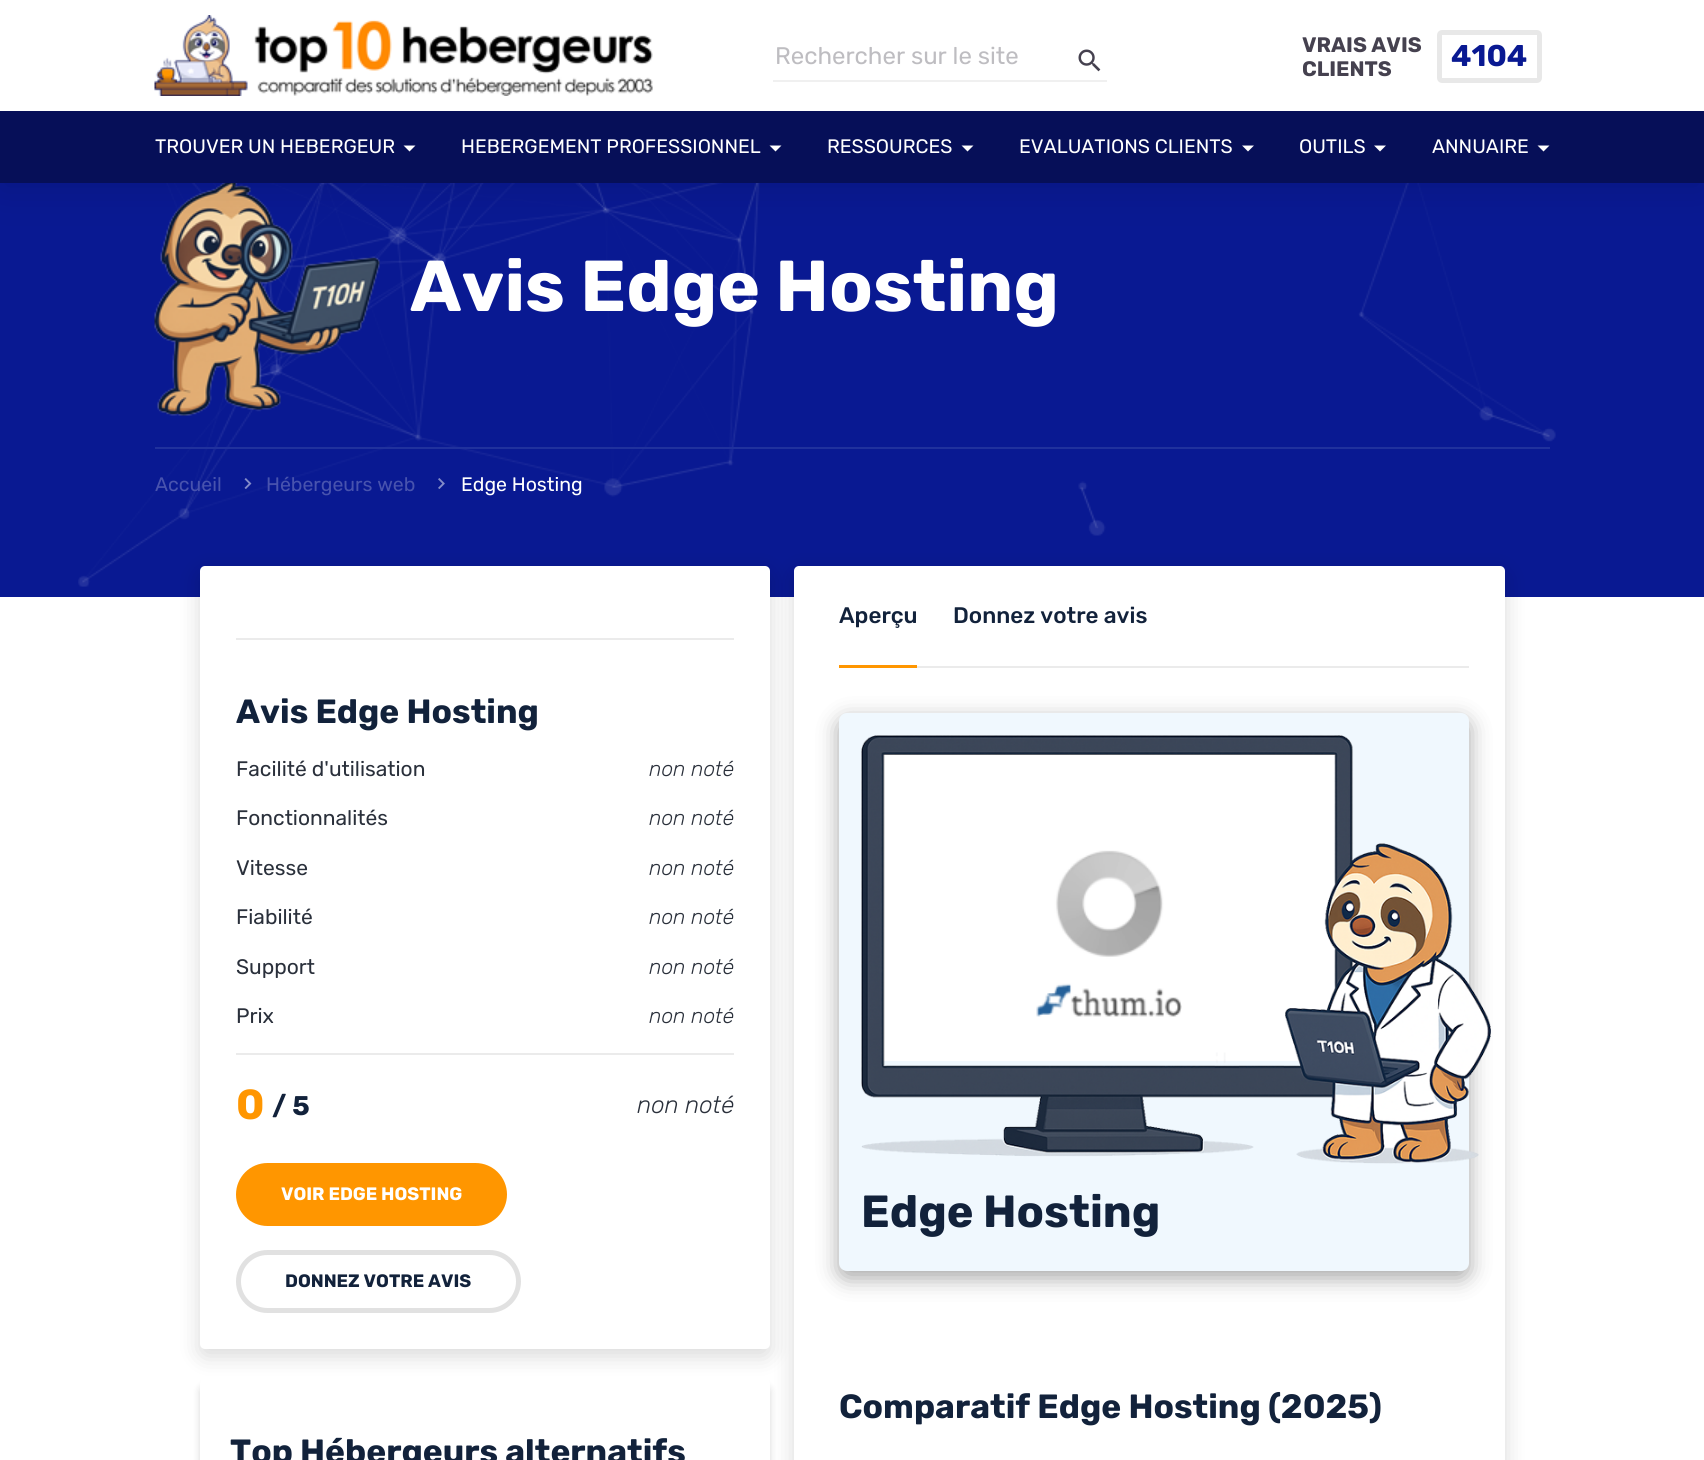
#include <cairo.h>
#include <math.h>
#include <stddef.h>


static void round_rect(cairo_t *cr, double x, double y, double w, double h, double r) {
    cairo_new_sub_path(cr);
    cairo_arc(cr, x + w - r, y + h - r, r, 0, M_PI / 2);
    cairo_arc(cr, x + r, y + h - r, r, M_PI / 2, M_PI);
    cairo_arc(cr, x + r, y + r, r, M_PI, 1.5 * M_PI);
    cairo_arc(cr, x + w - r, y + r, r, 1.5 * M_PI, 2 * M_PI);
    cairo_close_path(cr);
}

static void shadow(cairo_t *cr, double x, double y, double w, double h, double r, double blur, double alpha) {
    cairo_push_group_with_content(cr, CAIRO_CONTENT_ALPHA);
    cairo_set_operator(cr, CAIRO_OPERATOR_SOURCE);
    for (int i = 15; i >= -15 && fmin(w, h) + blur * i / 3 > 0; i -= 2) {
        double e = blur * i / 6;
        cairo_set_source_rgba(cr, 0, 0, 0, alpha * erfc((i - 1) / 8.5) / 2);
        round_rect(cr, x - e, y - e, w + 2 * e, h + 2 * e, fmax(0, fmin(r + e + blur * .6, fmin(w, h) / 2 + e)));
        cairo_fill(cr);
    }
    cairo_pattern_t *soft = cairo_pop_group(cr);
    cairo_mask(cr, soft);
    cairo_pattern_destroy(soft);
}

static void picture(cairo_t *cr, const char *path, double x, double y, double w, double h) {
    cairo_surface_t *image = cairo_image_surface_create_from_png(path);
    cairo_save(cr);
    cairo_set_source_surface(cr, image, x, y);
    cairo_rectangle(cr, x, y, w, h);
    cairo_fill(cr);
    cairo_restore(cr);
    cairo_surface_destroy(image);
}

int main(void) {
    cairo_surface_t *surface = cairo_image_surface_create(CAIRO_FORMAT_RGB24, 1704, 1460);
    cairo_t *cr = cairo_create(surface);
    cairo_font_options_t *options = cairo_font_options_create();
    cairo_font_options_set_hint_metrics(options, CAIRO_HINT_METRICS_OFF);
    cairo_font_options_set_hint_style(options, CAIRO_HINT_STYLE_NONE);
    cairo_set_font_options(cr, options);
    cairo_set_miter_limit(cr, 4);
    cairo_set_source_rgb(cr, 1, 1, 1);
    cairo_paint(cr);
    cairo_set_source_rgb(cr, 0.039, 0.098, 0.573);
    cairo_rectangle(cr, 0, 183, 1704, 414);
    cairo_fill(cr);
    picture(cr, "img3.png", 78, 183, 1478, 404);
    picture(cr, "img4.png", 154, 183, 226, 233);
    cairo_set_source_rgb(cr, 0, 0, 0);
    shadow(cr, 0, 8, 1704, 183, 0, 19, 0.1);
    cairo_set_source_rgb(cr, 1, 1, 1);
    cairo_rectangle(cr, 0, 0, 1704, 111);
    cairo_fill(cr);
    picture(cr, "img1.png", 154, 15, 499, 81);
    cairo_set_source_rgb(cr, 0.941, 0.941, 0.941);
    cairo_rectangle(cr, 773, 80, 334, 2);
    cairo_fill(cr);
    cairo_select_font_face(cr, "Rubik", CAIRO_FONT_SLANT_NORMAL, CAIRO_FONT_WEIGHT_NORMAL);
    cairo_set_font_size(cr, 24);
    cairo_set_source_rgb(cr, 0.745, 0.741, 0.757);
    cairo_move_to(cr, 775, 64);
    cairo_show_text(cr, "Rechercher sur le site");
    picture(cr, "img2.png", 1078, 49, 23, 23);
    cairo_select_font_face(cr, "Rubik", CAIRO_FONT_SLANT_NORMAL, CAIRO_FONT_WEIGHT_BOLD);
    cairo_set_font_size(cr, 21);
    cairo_set_source_rgb(cr, 0.271, 0.255, 0.31);
    cairo_move_to(cr, 1302, 52);
    cairo_show_text(cr, "VRAIS AVIS");
    cairo_move_to(cr, 1302, 76);
    cairo_show_text(cr, "CLIENTS");
    round_rect(cr, 1439.5, 32.5, 100, 48, 2.5);
    cairo_set_source_rgb(cr, 0.91, 0.91, 0.91);
    cairo_set_line_width(cr, 5);
    cairo_stroke(cr);
    cairo_set_font_size(cr, 30);
    cairo_set_source_rgb(cr, 0.039, 0.098, 0.573);
    cairo_move_to(cr, 1451, 66);
    cairo_show_text(cr, "4104");
    cairo_set_source_rgb(cr, 0.024, 0.059, 0.345);
    cairo_rectangle(cr, 0, 111, 1704, 72);
    cairo_fill(cr);
    cairo_select_font_face(cr, "Rubik", CAIRO_FONT_SLANT_NORMAL, CAIRO_FONT_WEIGHT_NORMAL);
    cairo_set_font_size(cr, 19.5);
    cairo_set_source_rgb(cr, 1, 1, 1);
    cairo_move_to(cr, 155, 153);
    cairo_show_text(cr, "TROUVER UN HEBERGEUR");
    cairo_new_path(cr);
    cairo_move_to(cr, 403.5, 145.5);
    cairo_line_to(cr, 415.5, 145.5);
    cairo_line_to(cr, 409.5, 151.5);
    cairo_close_path(cr);
    cairo_fill(cr);
    cairo_move_to(cr, 461, 153);
    cairo_show_text(cr, "HEBERGEMENT PROFESSIONNEL");
    cairo_new_path(cr);
    cairo_move_to(cr, 769.5, 145.5);
    cairo_line_to(cr, 781.5, 145.5);
    cairo_line_to(cr, 775.5, 151.5);
    cairo_close_path(cr);
    cairo_fill(cr);
    cairo_move_to(cr, 827, 153);
    cairo_show_text(cr, "RESSOURCES");
    cairo_new_path(cr);
    cairo_move_to(cr, 961.5, 145.5);
    cairo_line_to(cr, 973.5, 145.5);
    cairo_line_to(cr, 967.5, 151.5);
    cairo_close_path(cr);
    cairo_fill(cr);
    cairo_move_to(cr, 1019, 153);
    cairo_show_text(cr, "EVALUATIONS CLIENTS");
    cairo_new_path(cr);
    cairo_move_to(cr, 1242, 145.5);
    cairo_line_to(cr, 1254, 145.5);
    cairo_line_to(cr, 1248, 151.5);
    cairo_close_path(cr);
    cairo_fill(cr);
    cairo_move_to(cr, 1299, 153);
    cairo_show_text(cr, "OUTILS");
    cairo_new_path(cr);
    cairo_move_to(cr, 1374, 145.5);
    cairo_line_to(cr, 1386, 145.5);
    cairo_line_to(cr, 1380, 151.5);
    cairo_close_path(cr);
    cairo_fill(cr);
    cairo_move_to(cr, 1432, 153);
    cairo_show_text(cr, "ANNUAIRE");
    cairo_new_path(cr);
    cairo_move_to(cr, 1537.5, 145.5);
    cairo_line_to(cr, 1549.5, 145.5);
    cairo_line_to(cr, 1543.5, 151.5);
    cairo_close_path(cr);
    cairo_fill(cr);
    cairo_select_font_face(cr, "Rubik", CAIRO_FONT_SLANT_NORMAL, CAIRO_FONT_WEIGHT_BOLD);
    cairo_set_font_size(cr, 72);
    cairo_move_to(cr, 410, 311);
    cairo_show_text(cr, "Avis Edge Hosting");
    cairo_set_source_rgb(cr, 0.125, 0.192, 0.616);
    cairo_rectangle(cr, 155, 447, 1395, 2);
    cairo_fill(cr);
    cairo_select_font_face(cr, "Rubik", CAIRO_FONT_SLANT_NORMAL, CAIRO_FONT_WEIGHT_NORMAL);
    cairo_set_font_size(cr, 19.5);
    cairo_set_source_rgb(cr, 0.282, 0.325, 0.682);
    cairo_move_to(cr, 155, 491);
    cairo_show_text(cr, "Accueil");
    picture(cr, "img5.png", 244, 478, 8, 11);
    cairo_move_to(cr, 266, 491);
    cairo_show_text(cr, "Hébergeurs web");
    picture(cr, "img6.png", 438, 478, 7, 11);
    cairo_set_source_rgb(cr, 1, 1, 1);
    cairo_move_to(cr, 461, 491);
    cairo_show_text(cr, "Edge Hosting");
    cairo_set_source_rgb(cr, 0, 0, 0);
    shadow(cr, 200, 573, 570, 783, 5, 11, 0.15);
    cairo_set_source_rgb(cr, 1, 1, 1);
    round_rect(cr, 200, 566, 570, 783, 5);
    cairo_fill(cr);
    cairo_set_source_rgb(cr, 0.918, 0.918, 0.918);
    cairo_rectangle(cr, 236, 638, 498, 2);
    cairo_fill(cr);
    cairo_select_font_face(cr, "Rubik", CAIRO_FONT_SLANT_NORMAL, CAIRO_FONT_WEIGHT_BOLD);
    cairo_set_font_size(cr, 33.6);
    cairo_set_source_rgb(cr, 0.071, 0.133, 0.231);
    cairo_move_to(cr, 236, 723);
    cairo_show_text(cr, "Avis Edge Hosting");
    cairo_select_font_face(cr, "Rubik", CAIRO_FONT_SLANT_NORMAL, CAIRO_FONT_WEIGHT_NORMAL);
    cairo_set_font_size(cr, 21);
    cairo_set_source_rgb(cr, 0.165, 0.188, 0.231);
    cairo_move_to(cr, 236, 776);
    cairo_show_text(cr, "Facilité d'utilisation");
    cairo_select_font_face(cr, "Rubik Light", CAIRO_FONT_SLANT_ITALIC, CAIRO_FONT_WEIGHT_NORMAL);
    cairo_move_to(cr, 649, 776);
    cairo_show_text(cr, "non noté");
    cairo_select_font_face(cr, "Rubik", CAIRO_FONT_SLANT_NORMAL, CAIRO_FONT_WEIGHT_NORMAL);
    cairo_move_to(cr, 236, 825);
    cairo_show_text(cr, "Fonctionnalités");
    cairo_select_font_face(cr, "Rubik Light", CAIRO_FONT_SLANT_ITALIC, CAIRO_FONT_WEIGHT_NORMAL);
    cairo_move_to(cr, 649, 825);
    cairo_show_text(cr, "non noté");
    cairo_select_font_face(cr, "Rubik", CAIRO_FONT_SLANT_NORMAL, CAIRO_FONT_WEIGHT_NORMAL);
    cairo_move_to(cr, 236, 875);
    cairo_show_text(cr, "Vitesse");
    cairo_select_font_face(cr, "Rubik Light", CAIRO_FONT_SLANT_ITALIC, CAIRO_FONT_WEIGHT_NORMAL);
    cairo_move_to(cr, 649, 875);
    cairo_show_text(cr, "non noté");
    cairo_select_font_face(cr, "Rubik", CAIRO_FONT_SLANT_NORMAL, CAIRO_FONT_WEIGHT_NORMAL);
    cairo_move_to(cr, 236, 924);
    cairo_show_text(cr, "Fiabilité");
    cairo_select_font_face(cr, "Rubik Light", CAIRO_FONT_SLANT_ITALIC, CAIRO_FONT_WEIGHT_NORMAL);
    cairo_move_to(cr, 649, 924);
    cairo_show_text(cr, "non noté");
    cairo_select_font_face(cr, "Rubik", CAIRO_FONT_SLANT_NORMAL, CAIRO_FONT_WEIGHT_NORMAL);
    cairo_move_to(cr, 236, 974);
    cairo_show_text(cr, "Support");
    cairo_select_font_face(cr, "Rubik Light", CAIRO_FONT_SLANT_ITALIC, CAIRO_FONT_WEIGHT_NORMAL);
    cairo_move_to(cr, 649, 974);
    cairo_show_text(cr, "non noté");
    cairo_select_font_face(cr, "Rubik", CAIRO_FONT_SLANT_NORMAL, CAIRO_FONT_WEIGHT_NORMAL);
    cairo_move_to(cr, 236, 1023);
    cairo_show_text(cr, "Prix");
    cairo_select_font_face(cr, "Rubik Light", CAIRO_FONT_SLANT_ITALIC, CAIRO_FONT_WEIGHT_NORMAL);
    cairo_move_to(cr, 649, 1023);
    cairo_show_text(cr, "non noté");
    cairo_set_source_rgb(cr, 0.918, 0.918, 0.918);
    cairo_rectangle(cr, 236, 1053, 498, 2);
    cairo_fill(cr);
    cairo_select_font_face(cr, "Rubik", CAIRO_FONT_SLANT_NORMAL, CAIRO_FONT_WEIGHT_BOLD);
    cairo_set_font_size(cr, 42);
    cairo_set_source_rgb(cr, 1, 0.588, 0);
    cairo_move_to(cr, 236, 1119);
    cairo_show_text(cr, "0");
    cairo_set_font_size(cr, 27);
    cairo_set_source_rgb(cr, 0.071, 0.133, 0.231);
    cairo_move_to(cr, 272, 1115);
    cairo_show_text(cr, "/ 5");
    cairo_select_font_face(cr, "Rubik Light", CAIRO_FONT_SLANT_ITALIC, CAIRO_FONT_WEIGHT_NORMAL);
    cairo_set_font_size(cr, 24);
    cairo_set_source_rgb(cr, 0.165, 0.188, 0.231);
    cairo_move_to(cr, 637, 1113);
    cairo_show_text(cr, "non noté");
    cairo_set_source_rgb(cr, 1, 0.588, 0);
    round_rect(cr, 236, 1163, 271, 63, 31.5);
    cairo_fill(cr);
    cairo_select_font_face(cr, "Rubik", CAIRO_FONT_SLANT_NORMAL, CAIRO_FONT_WEIGHT_BOLD);
    cairo_set_font_size(cr, 18);
    cairo_set_source_rgb(cr, 1, 1, 1);
    cairo_move_to(cr, 281, 1200);
    cairo_show_text(cr, "VOIR EDGE HOSTING");
    round_rect(cr, 238.5, 1252.5, 280, 58, 29);
    cairo_set_source_rgb(cr, 0.882, 0.882, 0.882);
    cairo_stroke(cr);
    cairo_set_source_rgb(cr, 0.071, 0.133, 0.231);
    cairo_move_to(cr, 285, 1287);
    cairo_show_text(cr, "DONNEZ VOTRE AVIS");
    cairo_set_source_rgb(cr, 0, 0, 0);
    shadow(cr, 200, 1386, 570, 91, 5, 4, 0.15);
    shadow(cr, 794, 573, 711, 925, 5, 11, 0.15);
    cairo_set_source_rgb(cr, 1, 1, 1);
    round_rect(cr, 200, 1379, 570, 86, 5);
    cairo_fill(cr);
    cairo_set_font_size(cr, 33.6);
    cairo_set_source_rgb(cr, 0.071, 0.133, 0.231);
    cairo_move_to(cr, 230, 1463);
    cairo_show_text(cr, "Top Hébergeurs alternatifs");
    cairo_set_source_rgb(cr, 1, 1, 1);
    round_rect(cr, 794, 566, 711, 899, 5);
    cairo_fill(cr);
    cairo_set_source_rgb(cr, 0.918, 0.918, 0.918);
    cairo_rectangle(cr, 917, 666, 552, 2);
    cairo_fill(cr);
    cairo_select_font_face(cr, "Rubik Medium", CAIRO_FONT_SLANT_NORMAL, CAIRO_FONT_WEIGHT_NORMAL);
    cairo_set_font_size(cr, 22.5);
    cairo_set_source_rgb(cr, 0.071, 0.133, 0.231);
    cairo_move_to(cr, 839, 623);
    cairo_show_text(cr, "Aperçu");
    cairo_set_source_rgb(cr, 1, 0.588, 0);
    cairo_rectangle(cr, 839, 665, 78, 3);
    cairo_fill(cr);
    cairo_set_source_rgb(cr, 0.071, 0.133, 0.231);
    cairo_move_to(cr, 953, 623);
    cairo_show_text(cr, "Donnez votre avis");
    cairo_set_source_rgb(cr, 0, 0, 0);
    shadow(cr, 839, 720, 630, 558, 8, 11, 0.35);
    cairo_set_source_rgb(cr, 0.941, 0.969, 0.996);
    round_rect(cr, 839, 713, 630, 558, 8);
    cairo_fill(cr);
    cairo_set_source_rgb(cr, 1, 1, 1);
    cairo_rectangle(cr, 883, 754, 453, 307);
    cairo_fill(cr);
    picture(cr, "img8.png", 883, 754, 299, 306);
    picture(cr, "img7.png", 861, 735, 630, 429);
    cairo_select_font_face(cr, "Rubik", CAIRO_FONT_SLANT_NORMAL, CAIRO_FONT_WEIGHT_BOLD);
    cairo_set_font_size(cr, 45);
    cairo_set_source_rgb(cr, 0.071, 0.133, 0.231);
    cairo_move_to(cr, 861, 1227);
    cairo_show_text(cr, "Edge Hosting");
    cairo_set_font_size(cr, 33.6);
    cairo_move_to(cr, 839, 1418);
    cairo_show_text(cr, "Comparatif Edge Hosting (2025)");
    cairo_surface_write_to_png(surface, "page.png");
    cairo_font_options_destroy(options);
    cairo_destroy(cr);
    cairo_surface_destroy(surface);
    return 0;
}
